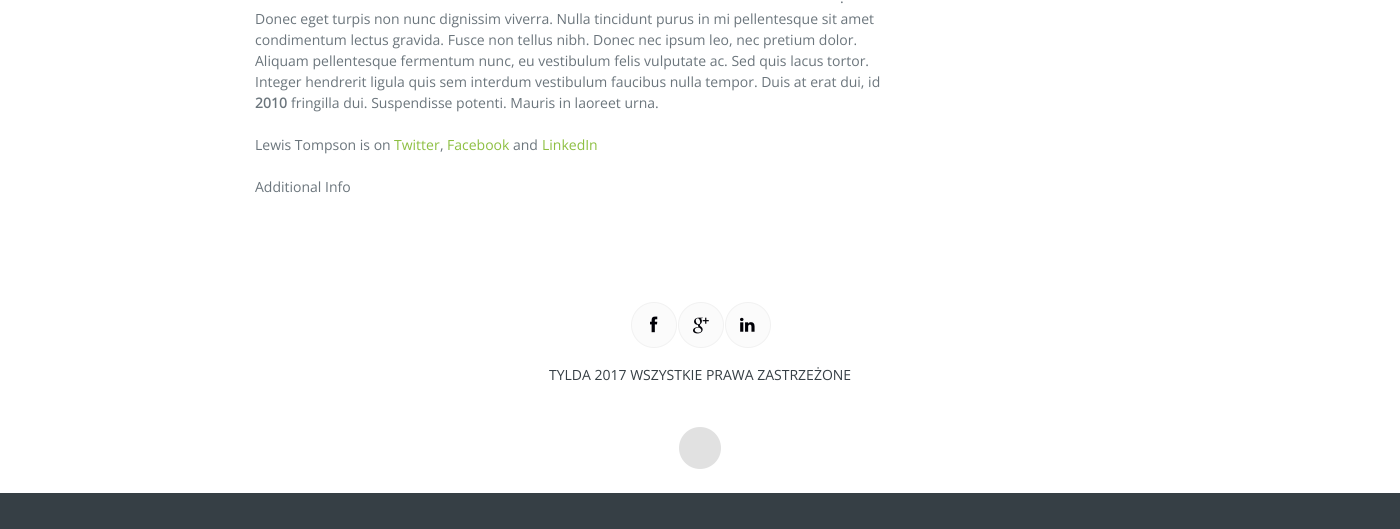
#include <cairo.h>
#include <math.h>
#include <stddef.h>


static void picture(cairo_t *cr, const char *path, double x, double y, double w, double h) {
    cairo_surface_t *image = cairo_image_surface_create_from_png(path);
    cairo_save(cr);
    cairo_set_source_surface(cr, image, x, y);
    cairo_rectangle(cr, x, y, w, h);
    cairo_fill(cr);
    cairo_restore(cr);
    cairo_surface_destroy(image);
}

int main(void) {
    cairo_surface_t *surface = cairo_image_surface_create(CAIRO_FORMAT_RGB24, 1400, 529);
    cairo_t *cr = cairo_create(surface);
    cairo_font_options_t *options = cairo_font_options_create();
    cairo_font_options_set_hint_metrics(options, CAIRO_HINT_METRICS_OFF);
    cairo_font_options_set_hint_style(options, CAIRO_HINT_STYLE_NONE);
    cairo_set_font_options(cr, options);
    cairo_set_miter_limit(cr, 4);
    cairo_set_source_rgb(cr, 0.212, 0.247, 0.271);
    cairo_paint(cr);
    cairo_set_source_rgb(cr, 1, 1, 1);
    cairo_rectangle(cr, 0, 0, 1400, 493);
    cairo_fill(cr);
    cairo_select_font_face(cr, "Open Sans", CAIRO_FONT_SLANT_NORMAL, CAIRO_FONT_WEIGHT_NORMAL);
    cairo_set_font_size(cr, 14);
    cairo_set_source_rgb(cr, 0.42, 0.459, 0.486);
    cairo_move_to(cr, 840, 3);
    cairo_show_text(cr, ".");
    cairo_move_to(cr, 255, 24);
    cairo_show_text(cr, "Donec eget turpis non nunc dignissim viverra. Nulla tincidunt purus in mi pellentesque sit amet");
    cairo_move_to(cr, 255, 45);
    cairo_show_text(cr, "condimentum lectus gravida. Fusce non tellus nibh. Donec nec ipsum leo, nec pretium dolor.");
    cairo_move_to(cr, 255, 66);
    cairo_show_text(cr, "Aliquam pellentesque fermentum nunc, eu vestibulum felis vulputate ac. Sed quis lacus tortor.");
    cairo_move_to(cr, 255, 87);
    cairo_show_text(cr, "Integer hendrerit ligula quis sem interdum vestibulum faucibus nulla tempor. Duis at erat dui, id");
    cairo_select_font_face(cr, "Open Sans", CAIRO_FONT_SLANT_NORMAL, CAIRO_FONT_WEIGHT_BOLD);
    cairo_move_to(cr, 255, 108);
    cairo_show_text(cr, "2010");
    cairo_select_font_face(cr, "Open Sans", CAIRO_FONT_SLANT_NORMAL, CAIRO_FONT_WEIGHT_NORMAL);
    cairo_move_to(cr, 291, 108);
    cairo_show_text(cr, "fringilla dui. Suspendisse potenti. Mauris in laoreet urna.");
    cairo_move_to(cr, 255, 150);
    cairo_show_text(cr, "Lewis Tompson is on");
    cairo_set_source_rgb(cr, 0.553, 0.749, 0.255);
    cairo_move_to(cr, 394, 150);
    cairo_show_text(cr, "Twitter");
    cairo_set_source_rgb(cr, 0.42, 0.459, 0.486);
    cairo_move_to(cr, 440, 150);
    cairo_show_text(cr, ",");
    cairo_set_source_rgb(cr, 0.553, 0.749, 0.255);
    cairo_move_to(cr, 447, 150);
    cairo_show_text(cr, "Facebook");
    cairo_set_source_rgb(cr, 0.42, 0.459, 0.486);
    cairo_move_to(cr, 513, 150);
    cairo_show_text(cr, "and");
    cairo_set_source_rgb(cr, 0.553, 0.749, 0.255);
    cairo_move_to(cr, 542, 150);
    cairo_show_text(cr, "LinkedIn");
    cairo_set_source_rgb(cr, 0.42, 0.459, 0.486);
    cairo_move_to(cr, 255, 192);
    cairo_show_text(cr, "Additional Info");
    cairo_set_source_rgb(cr, 0.984, 0.984, 0.984);
    cairo_new_path(cr);
    cairo_arc(cr, 654, 325, 22.5, 0, 2 * M_PI);
    cairo_fill_preserve(cr);
    cairo_set_source_rgb(cr, 0.945, 0.945, 0.945);
    cairo_set_line_width(cr, 1);
    cairo_stroke(cr);
    picture(cr, "img1.png", 650, 316, 8, 17);
    cairo_set_source_rgb(cr, 0.984, 0.984, 0.984);
    cairo_arc(cr, 701, 325, 22.5, 0, 2 * M_PI);
    cairo_fill_preserve(cr);
    cairo_set_source_rgb(cr, 0.945, 0.945, 0.945);
    cairo_stroke(cr);
    picture(cr, "img2.png", 693, 317, 16, 17);
    cairo_set_source_rgb(cr, 0.984, 0.984, 0.984);
    cairo_arc(cr, 748, 325, 22.5, 0, 2 * M_PI);
    cairo_fill_preserve(cr);
    cairo_set_source_rgb(cr, 0.945, 0.945, 0.945);
    cairo_stroke(cr);
    picture(cr, "img3.png", 740, 317, 15, 15);
    cairo_set_source_rgb(cr, 0.212, 0.247, 0.271);
    cairo_move_to(cr, 549, 380);
    cairo_show_text(cr, "TYLDA 2017 WSZYSTKIE PRAWA ZASTRZEŻONE");
    cairo_set_source_rgb(cr, 0.882, 0.882, 0.882);
    cairo_new_path(cr);
    cairo_arc(cr, 700, 448, 21, 0, 2 * M_PI);
    cairo_fill(cr);
    cairo_surface_write_to_png(surface, "page.png");
    cairo_font_options_destroy(options);
    cairo_destroy(cr);
    cairo_surface_destroy(surface);
    return 0;
}
